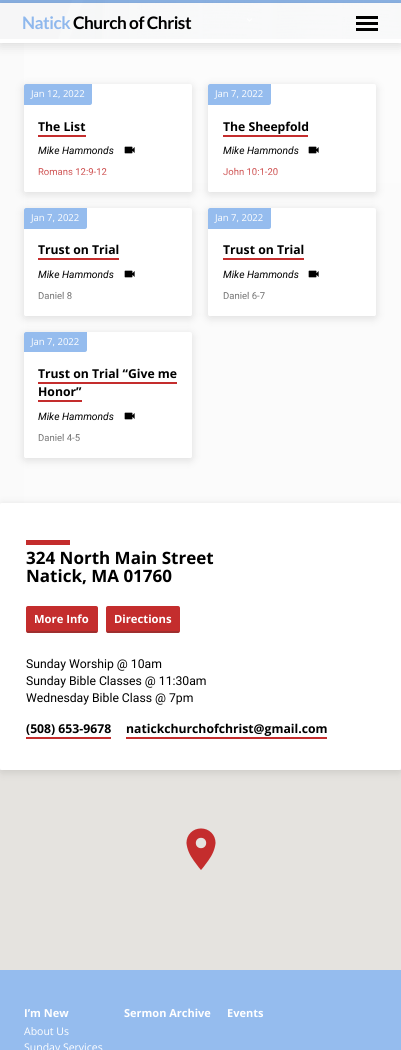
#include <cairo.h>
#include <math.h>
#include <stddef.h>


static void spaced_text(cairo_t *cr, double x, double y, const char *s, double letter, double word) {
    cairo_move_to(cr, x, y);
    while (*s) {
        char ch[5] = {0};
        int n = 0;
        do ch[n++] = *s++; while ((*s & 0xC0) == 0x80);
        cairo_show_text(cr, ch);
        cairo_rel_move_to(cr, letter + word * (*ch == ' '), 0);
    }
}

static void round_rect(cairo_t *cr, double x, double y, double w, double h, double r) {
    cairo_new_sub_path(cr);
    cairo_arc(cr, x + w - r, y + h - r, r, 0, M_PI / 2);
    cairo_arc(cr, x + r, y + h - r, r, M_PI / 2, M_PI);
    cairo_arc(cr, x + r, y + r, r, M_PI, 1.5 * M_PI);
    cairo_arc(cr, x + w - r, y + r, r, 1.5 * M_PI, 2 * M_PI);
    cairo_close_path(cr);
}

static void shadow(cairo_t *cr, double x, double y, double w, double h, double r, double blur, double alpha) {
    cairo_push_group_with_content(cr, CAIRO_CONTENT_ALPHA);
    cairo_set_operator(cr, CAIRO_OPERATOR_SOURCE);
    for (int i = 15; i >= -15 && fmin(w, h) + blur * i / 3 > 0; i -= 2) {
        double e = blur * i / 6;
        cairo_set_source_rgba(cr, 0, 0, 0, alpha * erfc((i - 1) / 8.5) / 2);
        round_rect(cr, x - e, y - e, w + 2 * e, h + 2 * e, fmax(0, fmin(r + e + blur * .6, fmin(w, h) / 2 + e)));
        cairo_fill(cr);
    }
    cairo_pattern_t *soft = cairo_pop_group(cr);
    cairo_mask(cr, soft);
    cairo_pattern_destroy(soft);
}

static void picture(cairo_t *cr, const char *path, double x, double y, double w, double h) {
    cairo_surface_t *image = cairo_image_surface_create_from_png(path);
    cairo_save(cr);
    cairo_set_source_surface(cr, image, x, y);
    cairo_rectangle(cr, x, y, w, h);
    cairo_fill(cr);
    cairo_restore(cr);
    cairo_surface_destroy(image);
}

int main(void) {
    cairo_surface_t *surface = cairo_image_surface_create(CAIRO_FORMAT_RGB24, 401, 1050);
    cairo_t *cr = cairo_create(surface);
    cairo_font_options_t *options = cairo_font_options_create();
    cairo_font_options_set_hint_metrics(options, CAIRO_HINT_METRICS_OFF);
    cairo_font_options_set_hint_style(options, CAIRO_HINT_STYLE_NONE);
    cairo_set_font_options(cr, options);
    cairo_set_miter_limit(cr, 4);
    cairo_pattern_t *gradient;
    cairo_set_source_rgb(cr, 1, 1, 1);
    cairo_paint(cr);
    cairo_set_source_rgb(cr, 0.439, 0.553, 0.702);
    cairo_rectangle(cr, 0, 0, 401, 39);
    cairo_fill(cr);
    picture(cr, "img1.png", 0, 0, 401, 39);
    gradient = cairo_pattern_create_linear(201, -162, 201, 39);
    cairo_pattern_add_color_stop_rgba(gradient, 0, 0, 0, 0, 0);
    cairo_pattern_add_color_stop_rgba(gradient, 0.36, 0, 0, 0, 0);
    cairo_pattern_add_color_stop_rgba(gradient, 0.76, 0, 0, 0, 0.15);
    cairo_pattern_add_color_stop_rgba(gradient, 1, 0, 0, 0, 0.15);
    cairo_set_source(cr, gradient);
    cairo_pattern_destroy(gradient);
    cairo_rectangle(cr, 0, 0, 401, 39);
    cairo_fill(cr);
    picture(cr, "img2.png", 59, 18, 7, 4);
    picture(cr, "img3.png", 114, 18, 7, 4);
    picture(cr, "img4.png", 183, 18, 7, 4);
    picture(cr, "img5.png", 246, 18, 7, 4);
    cairo_set_source_rgba(cr, 0.561, 0.722, 0.929, 0.95);
    cairo_rectangle(cr, 0, 0, 401, 3);
    cairo_fill(cr);
    cairo_set_source_rgb(cr, 0.98, 0.98, 0.98);
    cairo_rectangle(cr, 0, 39, 24, 464);
    cairo_fill(cr);
    gradient = cairo_pattern_create_linear(224, 39, 225, 503);
    cairo_pattern_add_color_stop_rgba(gradient, 0.22, 0.988, 0.988, 0.988, 1);
    cairo_pattern_add_color_stop_rgba(gradient, 0.43, 0.984, 0.984, 0.984, 1);
    cairo_set_source(cr, gradient);
    cairo_pattern_destroy(gradient);
    cairo_rectangle(cr, 24, 39, 377, 464);
    cairo_fill(cr);
    cairo_save(cr);
    cairo_set_fill_rule(cr, CAIRO_FILL_RULE_EVEN_ODD);
    cairo_new_path(cr);
    cairo_move_to(cr, 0, 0);
    cairo_line_to(cr, 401, 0);
    cairo_line_to(cr, 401, 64);
    cairo_line_to(cr, 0, 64);
    cairo_close_path(cr);
    cairo_move_to(cr, 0, 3);
    cairo_line_to(cr, 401, 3);
    cairo_line_to(cr, 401, 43);
    cairo_line_to(cr, 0, 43);
    cairo_close_path(cr);
    cairo_clip(cr);
    cairo_set_source_rgb(cr, 0, 0, 0);
    shadow(cr, 0, 5, 401, 40, 0, 6, 0.14);
    cairo_restore(cr);
    cairo_set_source_rgba(cr, 1, 1, 1, 0.95);
    cairo_rectangle(cr, 0, 3, 401, 40);
    cairo_fill(cr);
    cairo_select_font_face(cr, "Lato", CAIRO_FONT_SLANT_NORMAL, CAIRO_FONT_WEIGHT_BOLD);
    cairo_set_font_size(cr, 17.25);
    cairo_set_source_rgb(cr, 0.561, 0.722, 0.929);
    spaced_text(cr, 22, 29, "Natick", -0.5, 0);
    cairo_set_source_rgb(cr, 0, 0, 0);
    spaced_text(cr, 73, 29, "Church of Christ", -0.5, 0);
    cairo_rectangle(cr, 356, 16, 22, 3);
    cairo_fill(cr);
    cairo_rectangle(cr, 356, 22, 22, 3);
    cairo_fill(cr);
    cairo_rectangle(cr, 356, 28, 22, 3);
    cairo_fill(cr);
    cairo_set_source_rgb(cr, 0, 0, 0);
    shadow(cr, 24, 86, 168, 108, 2, 5, 0.12);
    cairo_set_source_rgb(cr, 1, 1, 1);
    round_rect(cr, 24, 84, 168, 108, 2);
    cairo_fill(cr);
    cairo_set_source_rgb(cr, 0.584, 0.737, 0.933);
    cairo_new_path(cr);
    cairo_move_to(cr, 26, 84);
    cairo_line_to(cr, 92, 84);
    cairo_line_to(cr, 92, 103);
    cairo_curve_to(cr, 92, 104, 91, 105, 90, 105);
    cairo_line_to(cr, 24, 105);
    cairo_line_to(cr, 24, 86);
    cairo_curve_to(cr, 24, 85, 25, 84, 26, 84);
    cairo_close_path(cr);
    cairo_fill(cr);
    cairo_select_font_face(cr, "Open Sans", CAIRO_FONT_SLANT_NORMAL, CAIRO_FONT_WEIGHT_NORMAL);
    cairo_set_font_size(cr, 9.5);
    cairo_set_source_rgb(cr, 1, 1, 1);
    cairo_move_to(cr, 31, 97);
    cairo_show_text(cr, "Jan 12, 2022");
    cairo_select_font_face(cr, "Open Sans", CAIRO_FONT_SLANT_NORMAL, CAIRO_FONT_WEIGHT_BOLD);
    cairo_set_font_size(cr, 12.2);
    cairo_set_source_rgb(cr, 0, 0, 0);
    cairo_move_to(cr, 38, 131);
    cairo_show_text(cr, "The List");
    cairo_set_source_rgb(cr, 0.769, 0.176, 0.176);
    cairo_rectangle(cr, 38, 135, 48, 2);
    cairo_fill(cr);
    cairo_select_font_face(cr, "Roboto", CAIRO_FONT_SLANT_ITALIC, CAIRO_FONT_WEIGHT_NORMAL);
    cairo_set_font_size(cr, 10.25);
    cairo_set_source_rgb(cr, 0, 0, 0);
    cairo_move_to(cr, 38, 154);
    cairo_show_text(cr, "Mike Hammonds");
    picture(cr, "img6.png", 124, 146, 11, 8);
    cairo_select_font_face(cr, "Roboto", CAIRO_FONT_SLANT_NORMAL, CAIRO_FONT_WEIGHT_NORMAL);
    cairo_set_font_size(cr, 9.5);
    cairo_set_source_rgb(cr, 0.769, 0.176, 0.176);
    cairo_move_to(cr, 38, 175);
    cairo_show_text(cr, "Romans 12:9-12");
    gradient = cairo_pattern_create_linear(108, 167, 108, 192);
    cairo_pattern_add_color_stop_rgba(gradient, 0, 1, 1, 1, 0);
    cairo_pattern_add_color_stop_rgba(gradient, 1, 1, 1, 1, 0.9);
    cairo_set_source(cr, gradient);
    cairo_pattern_destroy(gradient);
    cairo_new_path(cr);
    cairo_move_to(cr, 24, 167);
    cairo_line_to(cr, 192, 167);
    cairo_line_to(cr, 192, 190);
    cairo_curve_to(cr, 192, 191, 191, 192, 190, 192);
    cairo_line_to(cr, 26, 192);
    cairo_curve_to(cr, 25, 192, 24, 191, 24, 190);
    cairo_close_path(cr);
    cairo_fill(cr);
    cairo_set_source_rgb(cr, 0, 0, 0);
    shadow(cr, 208, 86, 168, 108, 2, 5, 0.12);
    cairo_set_source_rgb(cr, 1, 1, 1);
    round_rect(cr, 208, 84, 168, 108, 2);
    cairo_fill(cr);
    cairo_set_source_rgb(cr, 0.584, 0.737, 0.933);
    cairo_new_path(cr);
    cairo_move_to(cr, 210, 84);
    cairo_line_to(cr, 271, 84);
    cairo_line_to(cr, 271, 103);
    cairo_curve_to(cr, 271, 104, 270, 105, 269, 105);
    cairo_line_to(cr, 208, 105);
    cairo_line_to(cr, 208, 86);
    cairo_curve_to(cr, 208, 85, 209, 84, 210, 84);
    cairo_close_path(cr);
    cairo_fill(cr);
    cairo_select_font_face(cr, "Open Sans", CAIRO_FONT_SLANT_NORMAL, CAIRO_FONT_WEIGHT_NORMAL);
    cairo_set_source_rgb(cr, 1, 1, 1);
    cairo_move_to(cr, 215, 97);
    cairo_show_text(cr, "Jan 7, 2022");
    cairo_select_font_face(cr, "Open Sans", CAIRO_FONT_SLANT_NORMAL, CAIRO_FONT_WEIGHT_BOLD);
    cairo_set_font_size(cr, 12.2);
    cairo_set_source_rgb(cr, 0, 0, 0);
    cairo_move_to(cr, 223, 131);
    cairo_show_text(cr, "The Sheepfold");
    cairo_set_source_rgb(cr, 0.769, 0.176, 0.176);
    cairo_rectangle(cr, 223, 135, 85, 2);
    cairo_fill(cr);
    cairo_select_font_face(cr, "Roboto", CAIRO_FONT_SLANT_ITALIC, CAIRO_FONT_WEIGHT_NORMAL);
    cairo_set_font_size(cr, 10.25);
    cairo_set_source_rgb(cr, 0, 0, 0);
    cairo_move_to(cr, 223, 154);
    cairo_show_text(cr, "Mike Hammonds");
    picture(cr, "img6.png", 308, 146, 11, 8);
    cairo_select_font_face(cr, "Roboto", CAIRO_FONT_SLANT_NORMAL, CAIRO_FONT_WEIGHT_NORMAL);
    cairo_set_font_size(cr, 9.5);
    cairo_set_source_rgb(cr, 0.769, 0.176, 0.176);
    cairo_move_to(cr, 223, 175);
    cairo_show_text(cr, "John 10:1-20");
    gradient = cairo_pattern_create_linear(292, 167, 292, 192);
    cairo_pattern_add_color_stop_rgba(gradient, 0, 1, 1, 1, 0);
    cairo_pattern_add_color_stop_rgba(gradient, 1, 1, 1, 1, 0.9);
    cairo_set_source(cr, gradient);
    cairo_pattern_destroy(gradient);
    cairo_new_path(cr);
    cairo_move_to(cr, 208, 167);
    cairo_line_to(cr, 376, 167);
    cairo_line_to(cr, 376, 190);
    cairo_curve_to(cr, 376, 191, 375, 192, 374, 192);
    cairo_line_to(cr, 210, 192);
    cairo_curve_to(cr, 209, 192, 208, 191, 208, 190);
    cairo_close_path(cr);
    cairo_fill(cr);
    cairo_set_source_rgb(cr, 0, 0, 0);
    shadow(cr, 24, 210, 168, 108, 2, 5, 0.12);
    cairo_set_source_rgb(cr, 1, 1, 1);
    round_rect(cr, 24, 208, 168, 108, 2);
    cairo_fill(cr);
    cairo_set_source_rgb(cr, 0.584, 0.737, 0.933);
    cairo_new_path(cr);
    cairo_move_to(cr, 26, 208);
    cairo_line_to(cr, 87, 208);
    cairo_line_to(cr, 87, 227);
    cairo_curve_to(cr, 87, 228, 86, 229, 85, 229);
    cairo_line_to(cr, 24, 229);
    cairo_line_to(cr, 24, 210);
    cairo_curve_to(cr, 24, 209, 25, 208, 26, 208);
    cairo_close_path(cr);
    cairo_fill(cr);
    cairo_select_font_face(cr, "Open Sans", CAIRO_FONT_SLANT_NORMAL, CAIRO_FONT_WEIGHT_NORMAL);
    cairo_set_source_rgb(cr, 1, 1, 1);
    cairo_move_to(cr, 31, 221);
    cairo_show_text(cr, "Jan 7, 2022");
    cairo_select_font_face(cr, "Open Sans", CAIRO_FONT_SLANT_NORMAL, CAIRO_FONT_WEIGHT_BOLD);
    cairo_set_font_size(cr, 12.2);
    cairo_set_source_rgb(cr, 0, 0, 0);
    cairo_move_to(cr, 38, 254);
    cairo_show_text(cr, "Trust on Trial");
    cairo_set_source_rgb(cr, 0.769, 0.176, 0.176);
    cairo_rectangle(cr, 38, 258, 81, 2);
    cairo_fill(cr);
    cairo_select_font_face(cr, "Roboto", CAIRO_FONT_SLANT_ITALIC, CAIRO_FONT_WEIGHT_NORMAL);
    cairo_set_font_size(cr, 10.25);
    cairo_set_source_rgb(cr, 0, 0, 0);
    cairo_move_to(cr, 38, 278);
    cairo_show_text(cr, "Mike Hammonds");
    picture(cr, "img6.png", 124, 270, 11, 8);
    cairo_select_font_face(cr, "Roboto", CAIRO_FONT_SLANT_NORMAL, CAIRO_FONT_WEIGHT_NORMAL);
    cairo_set_font_size(cr, 9.5);
    cairo_set_source_rgb(cr, 0.333, 0.333, 0.333);
    cairo_move_to(cr, 38, 299);
    cairo_show_text(cr, "Daniel 8");
    gradient = cairo_pattern_create_linear(108, 291, 108, 316);
    cairo_pattern_add_color_stop_rgba(gradient, 0, 1, 1, 1, 0);
    cairo_pattern_add_color_stop_rgba(gradient, 1, 1, 1, 1, 0.9);
    cairo_set_source(cr, gradient);
    cairo_pattern_destroy(gradient);
    cairo_new_path(cr);
    cairo_move_to(cr, 24, 291);
    cairo_line_to(cr, 192, 291);
    cairo_line_to(cr, 192, 314);
    cairo_curve_to(cr, 192, 315, 191, 316, 190, 316);
    cairo_line_to(cr, 26, 316);
    cairo_curve_to(cr, 25, 316, 24, 315, 24, 314);
    cairo_close_path(cr);
    cairo_fill(cr);
    cairo_set_source_rgb(cr, 0, 0, 0);
    shadow(cr, 208, 210, 168, 108, 2, 5, 0.12);
    cairo_set_source_rgb(cr, 1, 1, 1);
    round_rect(cr, 208, 208, 168, 108, 2);
    cairo_fill(cr);
    cairo_set_source_rgb(cr, 0.584, 0.737, 0.933);
    cairo_new_path(cr);
    cairo_move_to(cr, 210, 208);
    cairo_line_to(cr, 271, 208);
    cairo_line_to(cr, 271, 227);
    cairo_curve_to(cr, 271, 228, 270, 229, 269, 229);
    cairo_line_to(cr, 208, 229);
    cairo_line_to(cr, 208, 210);
    cairo_curve_to(cr, 208, 209, 209, 208, 210, 208);
    cairo_close_path(cr);
    cairo_fill(cr);
    cairo_select_font_face(cr, "Open Sans", CAIRO_FONT_SLANT_NORMAL, CAIRO_FONT_WEIGHT_NORMAL);
    cairo_set_source_rgb(cr, 1, 1, 1);
    cairo_move_to(cr, 215, 221);
    cairo_show_text(cr, "Jan 7, 2022");
    cairo_select_font_face(cr, "Open Sans", CAIRO_FONT_SLANT_NORMAL, CAIRO_FONT_WEIGHT_BOLD);
    cairo_set_font_size(cr, 12.2);
    cairo_set_source_rgb(cr, 0, 0, 0);
    cairo_move_to(cr, 223, 254);
    cairo_show_text(cr, "Trust on Trial");
    cairo_set_source_rgb(cr, 0.769, 0.176, 0.176);
    cairo_rectangle(cr, 223, 258, 81, 2);
    cairo_fill(cr);
    cairo_select_font_face(cr, "Roboto", CAIRO_FONT_SLANT_ITALIC, CAIRO_FONT_WEIGHT_NORMAL);
    cairo_set_font_size(cr, 10.25);
    cairo_set_source_rgb(cr, 0, 0, 0);
    cairo_move_to(cr, 223, 278);
    cairo_show_text(cr, "Mike Hammonds");
    picture(cr, "img6.png", 308, 270, 11, 8);
    cairo_select_font_face(cr, "Roboto", CAIRO_FONT_SLANT_NORMAL, CAIRO_FONT_WEIGHT_NORMAL);
    cairo_set_font_size(cr, 9.5);
    cairo_set_source_rgb(cr, 0.333, 0.333, 0.333);
    cairo_move_to(cr, 223, 299);
    cairo_show_text(cr, "Daniel 6-7");
    gradient = cairo_pattern_create_linear(292, 291, 292, 316);
    cairo_pattern_add_color_stop_rgba(gradient, 0, 1, 1, 1, 0);
    cairo_pattern_add_color_stop_rgba(gradient, 1, 1, 1, 1, 0.9);
    cairo_set_source(cr, gradient);
    cairo_pattern_destroy(gradient);
    cairo_new_path(cr);
    cairo_move_to(cr, 208, 291);
    cairo_line_to(cr, 376, 291);
    cairo_line_to(cr, 376, 314);
    cairo_curve_to(cr, 376, 315, 375, 316, 374, 316);
    cairo_line_to(cr, 210, 316);
    cairo_curve_to(cr, 209, 316, 208, 315, 208, 314);
    cairo_close_path(cr);
    cairo_fill(cr);
    cairo_set_source_rgb(cr, 0, 0, 0);
    shadow(cr, 24, 334, 168, 126, 2, 5, 0.12);
    cairo_set_source_rgb(cr, 1, 1, 1);
    round_rect(cr, 24, 332, 168, 126, 2);
    cairo_fill(cr);
    cairo_set_source_rgb(cr, 0.584, 0.737, 0.933);
    cairo_new_path(cr);
    cairo_move_to(cr, 26, 332);
    cairo_line_to(cr, 87, 332);
    cairo_line_to(cr, 87, 350);
    cairo_curve_to(cr, 87, 351, 86, 352, 85, 352);
    cairo_line_to(cr, 24, 352);
    cairo_line_to(cr, 24, 334);
    cairo_curve_to(cr, 24, 333, 25, 332, 26, 332);
    cairo_close_path(cr);
    cairo_fill(cr);
    cairo_select_font_face(cr, "Open Sans", CAIRO_FONT_SLANT_NORMAL, CAIRO_FONT_WEIGHT_NORMAL);
    cairo_set_source_rgb(cr, 1, 1, 1);
    cairo_move_to(cr, 31, 345);
    cairo_show_text(cr, "Jan 7, 2022");
    cairo_select_font_face(cr, "Open Sans", CAIRO_FONT_SLANT_NORMAL, CAIRO_FONT_WEIGHT_BOLD);
    cairo_set_font_size(cr, 12.2);
    cairo_set_source_rgb(cr, 0, 0, 0);
    cairo_move_to(cr, 38, 378);
    cairo_show_text(cr, "Trust on Trial “Give me");
    cairo_move_to(cr, 38, 396);
    cairo_show_text(cr, "Honor”");
    cairo_set_source_rgb(cr, 0.769, 0.176, 0.176);
    cairo_rectangle(cr, 38, 382, 139, 2);
    cairo_fill(cr);
    cairo_rectangle(cr, 38, 400, 44, 2);
    cairo_fill(cr);
    cairo_select_font_face(cr, "Roboto", CAIRO_FONT_SLANT_ITALIC, CAIRO_FONT_WEIGHT_NORMAL);
    cairo_set_font_size(cr, 10.25);
    cairo_set_source_rgb(cr, 0, 0, 0);
    cairo_move_to(cr, 38, 420);
    cairo_show_text(cr, "Mike Hammonds");
    picture(cr, "img6.png", 124, 412, 11, 8);
    cairo_select_font_face(cr, "Roboto", CAIRO_FONT_SLANT_NORMAL, CAIRO_FONT_WEIGHT_NORMAL);
    cairo_set_font_size(cr, 9.5);
    cairo_set_source_rgb(cr, 0.333, 0.333, 0.333);
    cairo_move_to(cr, 38, 441);
    cairo_show_text(cr, "Daniel 4-5");
    gradient = cairo_pattern_create_linear(108, 433, 108, 458);
    cairo_pattern_add_color_stop_rgba(gradient, 0, 1, 1, 1, 0);
    cairo_pattern_add_color_stop_rgba(gradient, 1, 1, 1, 1, 0.9);
    cairo_set_source(cr, gradient);
    cairo_pattern_destroy(gradient);
    cairo_new_path(cr);
    cairo_move_to(cr, 24, 433);
    cairo_line_to(cr, 192, 433);
    cairo_line_to(cr, 192, 456);
    cairo_curve_to(cr, 192, 457, 191, 458, 190, 458);
    cairo_line_to(cr, 26, 458);
    cairo_curve_to(cr, 25, 458, 24, 457, 24, 456);
    cairo_close_path(cr);
    cairo_fill(cr);
    cairo_set_source_rgb(cr, 0.898, 0.89, 0.875);
    cairo_rectangle(cr, 0, 770, 401, 200);
    cairo_fill(cr);
    cairo_set_source_rgb(cr, 0, 0, 0);
    shadow(cr, 0, 505, 401, 267, 2, 5, 0.12);
    cairo_set_source_rgb(cr, 1, 1, 1);
    round_rect(cr, 0, 503, 401, 267, 2);
    cairo_fill(cr);
    cairo_set_source_rgb(cr, 0.769, 0.176, 0.176);
    cairo_rectangle(cr, 26, 540, 44, 5);
    cairo_fill(cr);
    cairo_select_font_face(cr, "Open Sans", CAIRO_FONT_SLANT_NORMAL, CAIRO_FONT_WEIGHT_BOLD);
    cairo_set_font_size(cr, 17);
    cairo_set_source_rgb(cr, 0, 0, 0);
    cairo_move_to(cr, 26, 564);
    cairo_show_text(cr, "324 North Main Street");
    cairo_move_to(cr, 26, 582);
    cairo_show_text(cr, "Natick, MA 01760");
    cairo_set_source_rgb(cr, 0.769, 0.176, 0.176);
    round_rect(cr, 26, 606, 72, 27, 2);
    cairo_fill(cr);
    cairo_set_source_rgba(cr, 0.196, 0.196, 0.196, 0.25);
    cairo_rectangle(cr, 27, 631, 70, 2);
    cairo_fill(cr);
    cairo_set_font_size(cr, 11.25);
    cairo_set_source_rgb(cr, 1, 1, 1);
    cairo_move_to(cr, 34, 623);
    cairo_show_text(cr, "More Info");
    cairo_set_source_rgb(cr, 0.769, 0.176, 0.176);
    round_rect(cr, 106, 606, 74, 27, 2);
    cairo_fill(cr);
    cairo_set_source_rgba(cr, 0.196, 0.196, 0.196, 0.25);
    cairo_rectangle(cr, 107, 631, 72, 2);
    cairo_fill(cr);
    cairo_set_source_rgb(cr, 1, 1, 1);
    cairo_move_to(cr, 114, 623);
    cairo_show_text(cr, "Directions");
    cairo_select_font_face(cr, "Roboto", CAIRO_FONT_SLANT_NORMAL, CAIRO_FONT_WEIGHT_NORMAL);
    cairo_set_font_size(cr, 12.2);
    cairo_set_source_rgb(cr, 0, 0, 0);
    cairo_move_to(cr, 26, 668);
    cairo_show_text(cr, "Sunday Worship @ 10am");
    cairo_move_to(cr, 26, 685);
    cairo_show_text(cr, "Sunday Bible Classes @ 11:30am");
    cairo_move_to(cr, 26, 702);
    cairo_show_text(cr, "Wednesday Bible Class @ 7pm");
    cairo_select_font_face(cr, "Open Sans", CAIRO_FONT_SLANT_NORMAL, CAIRO_FONT_WEIGHT_BOLD);
    cairo_move_to(cr, 26, 733);
    cairo_show_text(cr, "(508) 653-9678");
    cairo_set_source_rgb(cr, 0.769, 0.176, 0.176);
    cairo_rectangle(cr, 26, 737, 85, 2);
    cairo_fill(cr);
    cairo_set_source_rgb(cr, 0, 0, 0);
    cairo_move_to(cr, 126, 733);
    cairo_show_text(cr, "natickchurchofchrist@gmail.com");
    cairo_set_source_rgb(cr, 0.769, 0.176, 0.176);
    cairo_rectangle(cr, 126, 737, 201, 2);
    cairo_fill(cr);
    picture(cr, "img7.png", 186, 828, 30, 42);
    cairo_set_source_rgb(cr, 0.584, 0.737, 0.933);
    cairo_rectangle(cr, 0, 970, 401, 80);
    cairo_fill(cr);
    cairo_set_font_size(cr, 11);
    cairo_set_source_rgb(cr, 1, 1, 1);
    cairo_move_to(cr, 24, 1017);
    cairo_show_text(cr, "I’m New");
    cairo_select_font_face(cr, "Open Sans", CAIRO_FONT_SLANT_NORMAL, CAIRO_FONT_WEIGHT_NORMAL);
    cairo_set_font_size(cr, 10.5);
    cairo_move_to(cr, 24, 1035);
    cairo_show_text(cr, "About Us");
    cairo_move_to(cr, 24, 1051);
    cairo_show_text(cr, "Sunday Services");
    cairo_select_font_face(cr, "Open Sans", CAIRO_FONT_SLANT_NORMAL, CAIRO_FONT_WEIGHT_BOLD);
    cairo_set_font_size(cr, 11);
    cairo_move_to(cr, 124, 1017);
    cairo_show_text(cr, "Sermon Archive");
    cairo_move_to(cr, 227, 1017);
    cairo_show_text(cr, "Events");
    cairo_surface_write_to_png(surface, "page.png");
    cairo_font_options_destroy(options);
    cairo_destroy(cr);
    cairo_surface_destroy(surface);
    return 0;
}
